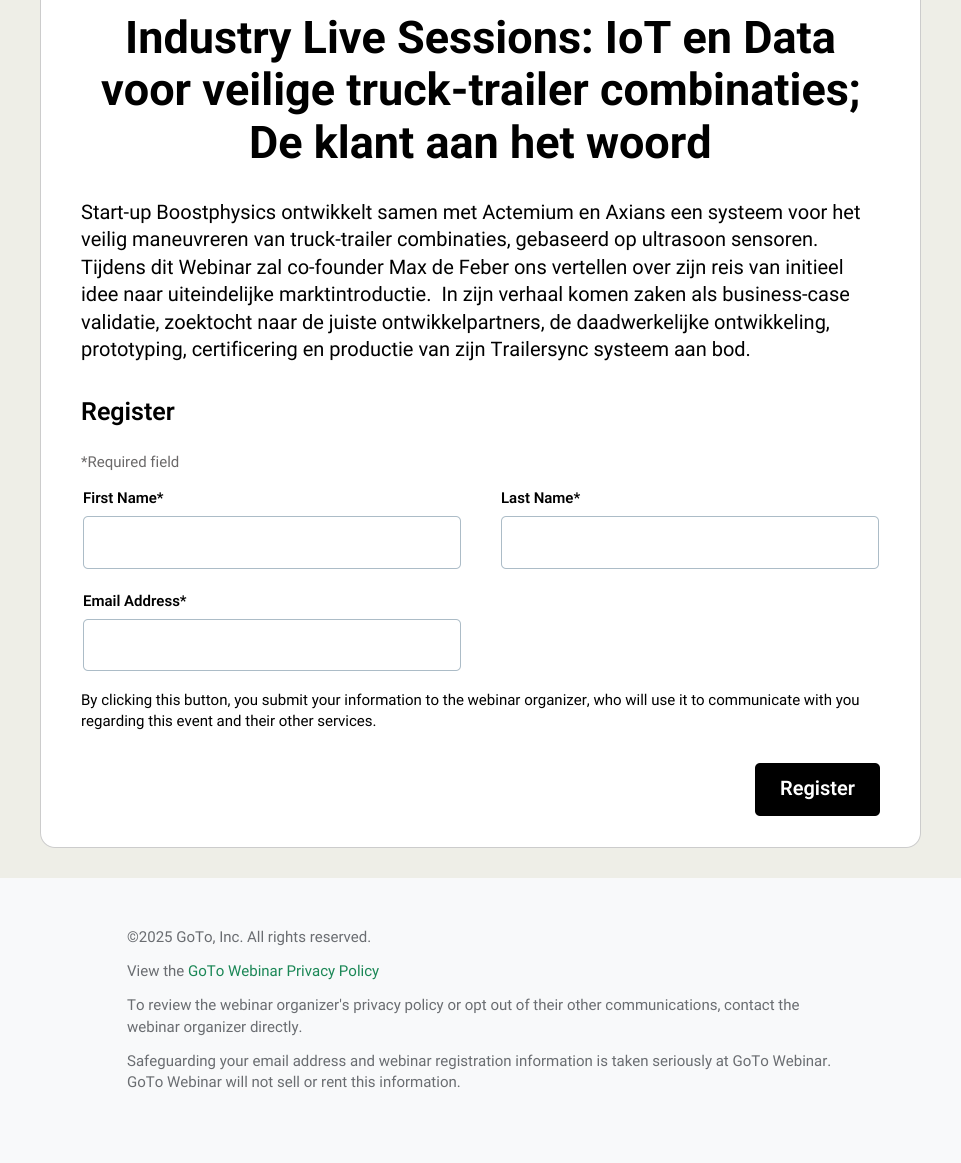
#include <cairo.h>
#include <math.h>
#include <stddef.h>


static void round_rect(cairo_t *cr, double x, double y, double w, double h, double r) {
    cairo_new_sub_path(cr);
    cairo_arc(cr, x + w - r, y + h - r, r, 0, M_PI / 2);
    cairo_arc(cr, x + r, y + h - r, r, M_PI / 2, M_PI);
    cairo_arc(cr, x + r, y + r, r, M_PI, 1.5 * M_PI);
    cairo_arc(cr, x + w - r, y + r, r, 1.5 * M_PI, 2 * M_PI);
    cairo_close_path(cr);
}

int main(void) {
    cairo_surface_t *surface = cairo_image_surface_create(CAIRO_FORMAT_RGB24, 961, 1163);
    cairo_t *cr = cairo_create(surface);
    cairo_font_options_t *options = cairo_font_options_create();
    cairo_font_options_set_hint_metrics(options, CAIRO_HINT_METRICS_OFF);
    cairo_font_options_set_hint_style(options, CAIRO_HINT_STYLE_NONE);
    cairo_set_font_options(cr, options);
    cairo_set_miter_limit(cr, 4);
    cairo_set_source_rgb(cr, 0.933, 0.933, 0.906);
    cairo_paint(cr);
    cairo_set_source_rgb(cr, 1, 1, 1);
    round_rect(cr, 40.5, -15.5, 880, 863, 14.5);
    cairo_fill_preserve(cr);
    cairo_set_source_rgb(cr, 0.8, 0.8, 0.8);
    cairo_set_line_width(cr, 1);
    cairo_stroke(cr);
    cairo_select_font_face(cr, "Roboto", CAIRO_FONT_SLANT_NORMAL, CAIRO_FONT_WEIGHT_BOLD);
    cairo_set_font_size(cr, 45);
    cairo_set_source_rgb(cr, 0, 0, 0);
    cairo_move_to(cr, 125, 53);
    cairo_show_text(cr, "Industry Live Sessions: IoT en Data");
    cairo_move_to(cr, 101, 105);
    cairo_show_text(cr, "voor veilige truck-trailer combinaties;");
    cairo_move_to(cr, 249, 158);
    cairo_show_text(cr, "De klant aan het woord");
    cairo_select_font_face(cr, "Roboto", CAIRO_FONT_SLANT_NORMAL, CAIRO_FONT_WEIGHT_NORMAL);
    cairo_set_font_size(cr, 20);
    cairo_move_to(cr, 81, 219);
    cairo_show_text(cr, "Start-up Boostphysics ontwikkelt samen met Actemium en Axians een systeem voor het");
    cairo_move_to(cr, 81, 246);
    cairo_show_text(cr, "veilig maneuvreren van truck-trailer combinaties, gebaseerd op ultrasoon sensoren.");
    cairo_move_to(cr, 81, 274);
    cairo_show_text(cr, "Tijdens dit Webinar zal co-founder Max de Feber ons vertellen over zijn reis van initieel");
    cairo_move_to(cr, 81, 301);
    cairo_show_text(cr, "idee naar uiteindelijke marktintroductie.  In zijn verhaal komen zaken als business-case");
    cairo_move_to(cr, 81, 329);
    cairo_show_text(cr, "validatie, zoektocht naar de juiste ontwikkelpartners, de daadwerkelijke ontwikkeling,");
    cairo_move_to(cr, 81, 356);
    cairo_show_text(cr, "prototyping, certificering en productie van zijn Trailersync systeem aan bod.");
    cairo_select_font_face(cr, "Roboto SemiBold", CAIRO_FONT_SLANT_NORMAL, CAIRO_FONT_WEIGHT_NORMAL);
    cairo_set_font_size(cr, 25);
    cairo_move_to(cr, 81, 420);
    cairo_show_text(cr, "Register");
    cairo_select_font_face(cr, "Roboto", CAIRO_FONT_SLANT_NORMAL, CAIRO_FONT_WEIGHT_NORMAL);
    cairo_set_font_size(cr, 15);
    cairo_set_source_rgb(cr, 0.42, 0.412, 0.412);
    cairo_move_to(cr, 81, 467);
    cairo_show_text(cr, "*Required field");
    cairo_select_font_face(cr, "Roboto SemiBold", CAIRO_FONT_SLANT_NORMAL, CAIRO_FONT_WEIGHT_NORMAL);
    cairo_set_source_rgb(cr, 0, 0, 0);
    cairo_move_to(cr, 83, 503);
    cairo_show_text(cr, "First Name*");
    round_rect(cr, 83.5, 516.5, 377, 52, 4.5);
    cairo_set_source_rgb(cr, 0.675, 0.737, 0.78);
    cairo_stroke(cr);
    cairo_set_source_rgb(cr, 0, 0, 0);
    cairo_move_to(cr, 501, 503);
    cairo_show_text(cr, "Last Name*");
    round_rect(cr, 501.5, 516.5, 377, 52, 4.5);
    cairo_set_source_rgb(cr, 0.675, 0.737, 0.78);
    cairo_stroke(cr);
    cairo_set_source_rgb(cr, 0, 0, 0);
    cairo_move_to(cr, 83, 606);
    cairo_show_text(cr, "Email Address*");
    round_rect(cr, 83.5, 619.5, 377, 51, 4.5);
    cairo_set_source_rgb(cr, 0.675, 0.737, 0.78);
    cairo_stroke(cr);
    cairo_select_font_face(cr, "Roboto", CAIRO_FONT_SLANT_NORMAL, CAIRO_FONT_WEIGHT_NORMAL);
    cairo_set_source_rgb(cr, 0, 0, 0);
    cairo_move_to(cr, 81, 705);
    cairo_show_text(cr, "By clicking this button, you submit your information to the webinar organizer, who will use it to communicate with you");
    cairo_move_to(cr, 81, 726);
    cairo_show_text(cr, "regarding this event and their other services.");
    round_rect(cr, 755, 763, 125, 53, 5);
    cairo_fill(cr);
    cairo_select_font_face(cr, "Roboto SemiBold", CAIRO_FONT_SLANT_NORMAL, CAIRO_FONT_WEIGHT_NORMAL);
    cairo_set_font_size(cr, 20);
    cairo_set_source_rgb(cr, 1, 1, 1);
    cairo_move_to(cr, 780, 795);
    cairo_show_text(cr, "Register");
    cairo_set_source_rgb(cr, 0.969, 0.973, 0.98);
    cairo_rectangle(cr, 0, 878, 961, 285);
    cairo_fill(cr);
    cairo_select_font_face(cr, "Roboto", CAIRO_FONT_SLANT_NORMAL, CAIRO_FONT_WEIGHT_NORMAL);
    cairo_set_font_size(cr, 15);
    cairo_set_source_rgb(cr, 0.416, 0.427, 0.443);
    cairo_move_to(cr, 127, 942);
    cairo_show_text(cr, "©2025 GoTo, Inc. All rights reserved.");
    cairo_move_to(cr, 127, 976);
    cairo_show_text(cr, "View the");
    cairo_set_source_rgb(cr, 0.106, 0.529, 0.337);
    cairo_move_to(cr, 188, 976);
    cairo_show_text(cr, "GoTo Webinar Privacy Policy");
    cairo_set_source_rgb(cr, 0.416, 0.427, 0.443);
    cairo_move_to(cr, 127, 1010);
    cairo_show_text(cr, "To review the webinar organizer's privacy policy or opt out of their other communications, contact the");
    cairo_move_to(cr, 127, 1032);
    cairo_show_text(cr, "webinar organizer directly.");
    cairo_move_to(cr, 127, 1066);
    cairo_show_text(cr, "Safeguarding your email address and webinar registration information is taken seriously at GoTo Webinar.");
    cairo_move_to(cr, 127, 1087);
    cairo_show_text(cr, "GoTo Webinar will not sell or rent this information.");
    cairo_surface_write_to_png(surface, "page.png");
    cairo_font_options_destroy(options);
    cairo_destroy(cr);
    cairo_surface_destroy(surface);
    return 0;
}
